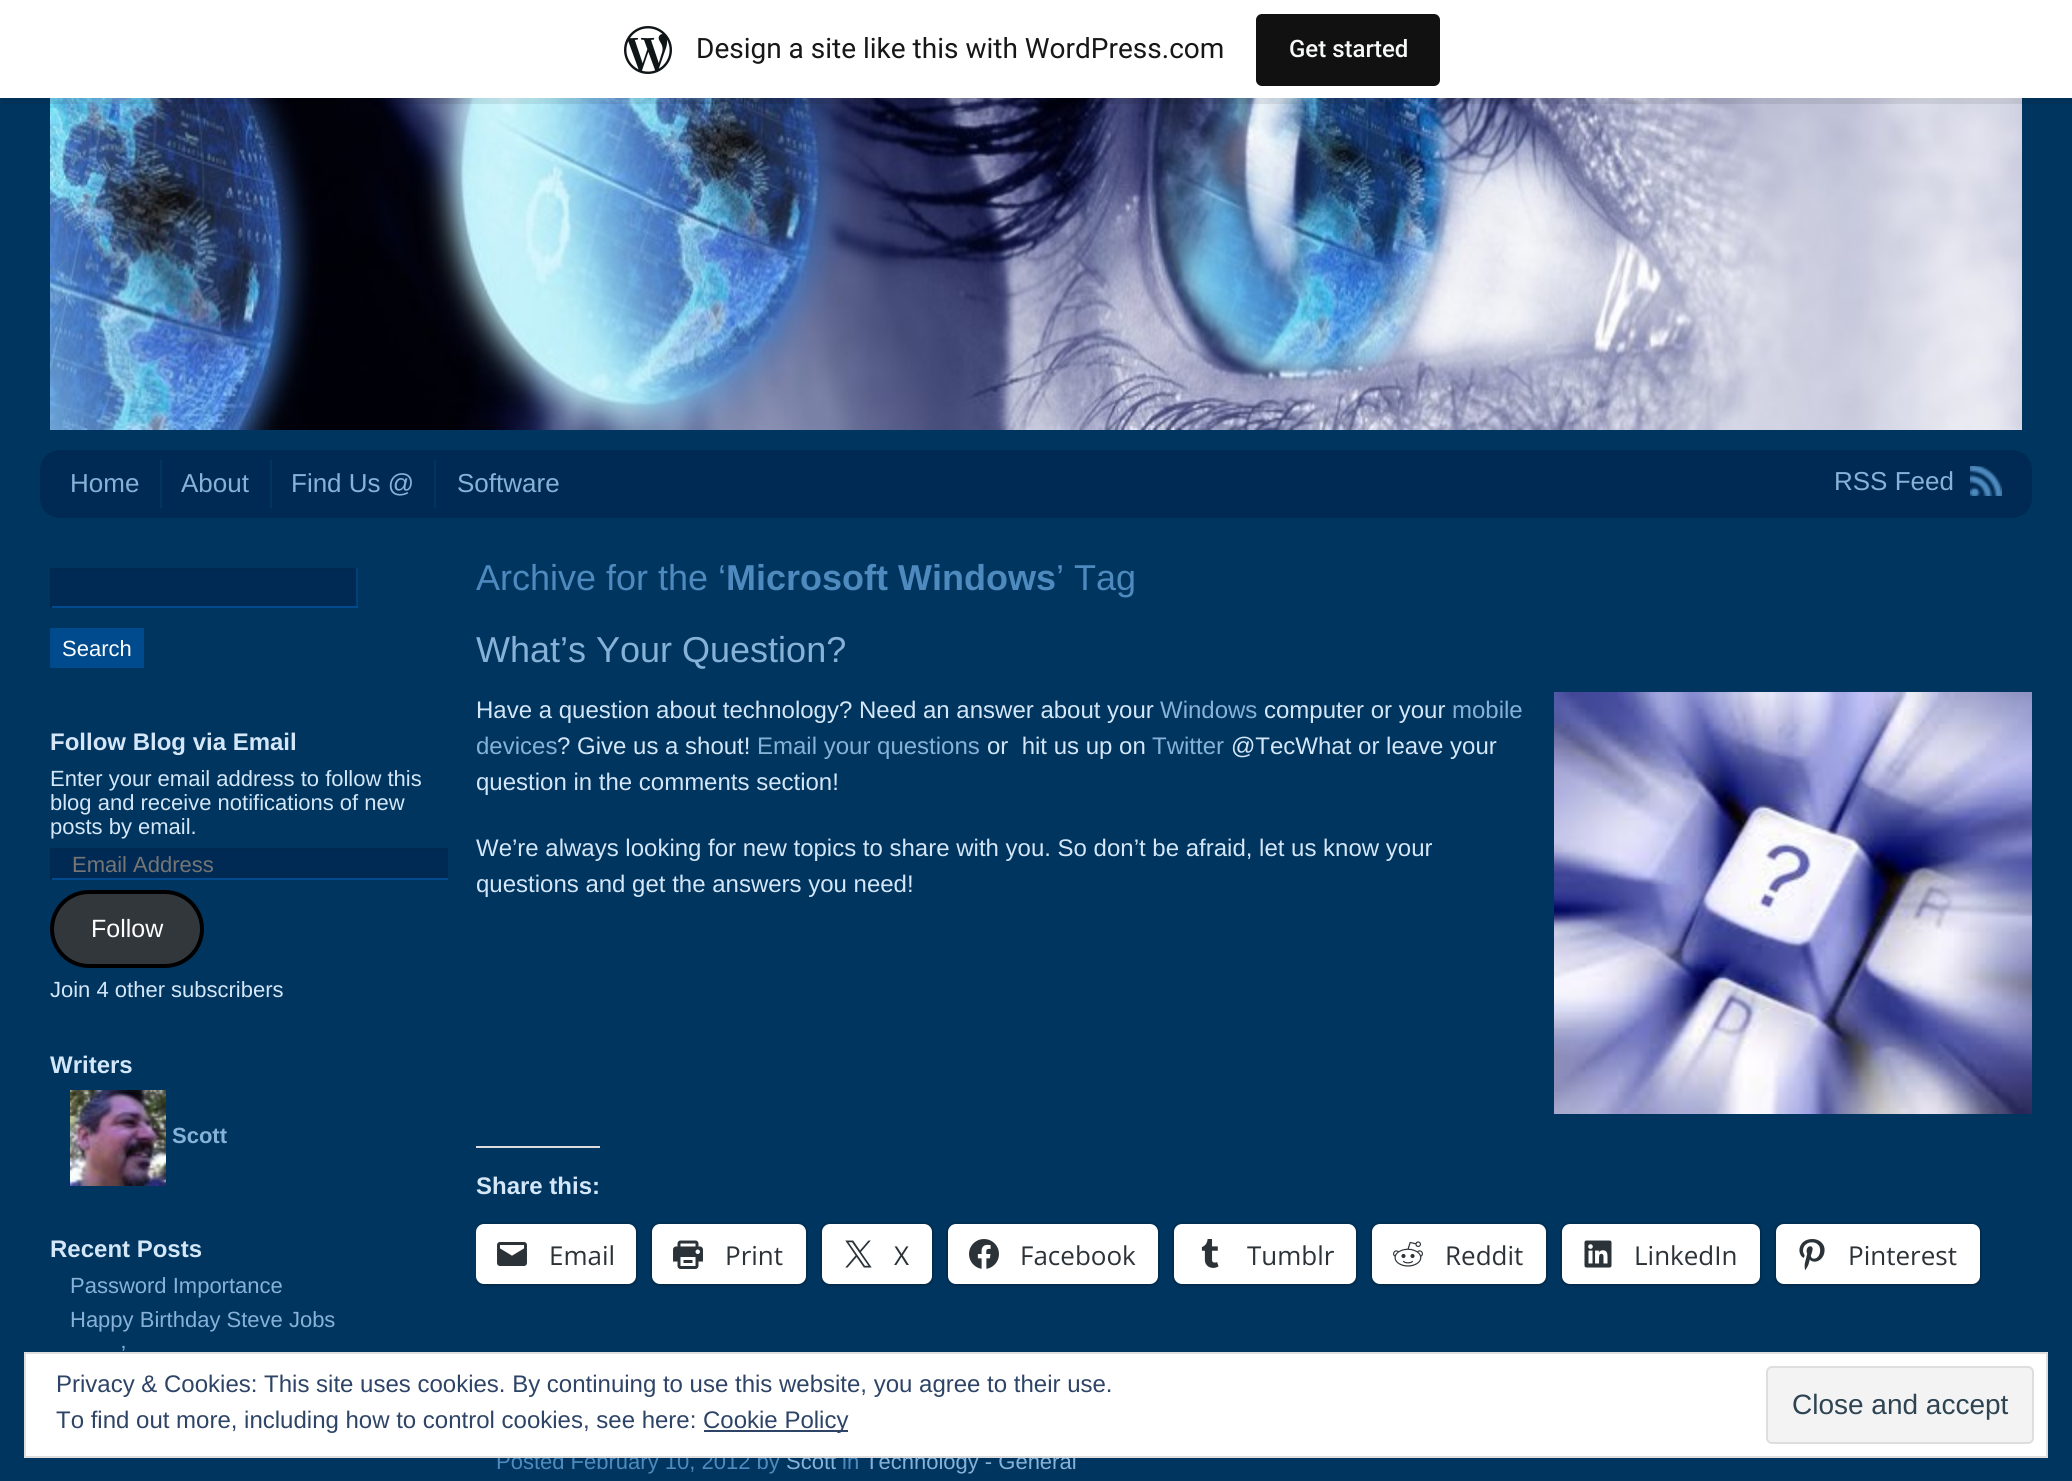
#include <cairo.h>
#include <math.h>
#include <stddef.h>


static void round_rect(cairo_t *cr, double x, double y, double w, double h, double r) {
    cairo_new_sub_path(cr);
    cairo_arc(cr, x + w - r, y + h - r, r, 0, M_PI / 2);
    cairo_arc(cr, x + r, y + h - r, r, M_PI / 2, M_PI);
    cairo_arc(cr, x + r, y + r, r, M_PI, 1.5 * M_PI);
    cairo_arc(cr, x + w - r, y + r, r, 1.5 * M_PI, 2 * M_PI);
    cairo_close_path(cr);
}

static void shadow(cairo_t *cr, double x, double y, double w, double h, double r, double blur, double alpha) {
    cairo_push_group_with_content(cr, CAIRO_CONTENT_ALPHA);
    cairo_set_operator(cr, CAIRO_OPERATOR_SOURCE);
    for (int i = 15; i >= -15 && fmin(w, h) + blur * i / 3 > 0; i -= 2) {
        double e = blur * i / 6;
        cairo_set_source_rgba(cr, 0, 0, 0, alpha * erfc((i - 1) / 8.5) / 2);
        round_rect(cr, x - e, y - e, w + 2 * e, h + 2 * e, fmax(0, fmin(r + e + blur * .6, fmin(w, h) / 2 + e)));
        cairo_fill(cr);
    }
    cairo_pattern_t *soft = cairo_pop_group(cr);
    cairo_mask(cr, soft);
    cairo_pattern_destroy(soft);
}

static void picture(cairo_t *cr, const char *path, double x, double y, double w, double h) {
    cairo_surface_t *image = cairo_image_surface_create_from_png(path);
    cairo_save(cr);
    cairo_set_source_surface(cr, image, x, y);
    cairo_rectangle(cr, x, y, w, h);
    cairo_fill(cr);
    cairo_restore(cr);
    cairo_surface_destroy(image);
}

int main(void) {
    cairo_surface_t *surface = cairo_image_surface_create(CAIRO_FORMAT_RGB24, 2072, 1481);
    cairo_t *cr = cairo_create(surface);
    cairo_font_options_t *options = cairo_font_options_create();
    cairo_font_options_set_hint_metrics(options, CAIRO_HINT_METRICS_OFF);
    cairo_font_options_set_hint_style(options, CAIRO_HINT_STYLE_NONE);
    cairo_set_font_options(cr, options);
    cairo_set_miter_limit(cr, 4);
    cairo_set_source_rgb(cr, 0, 0.208, 0.373);
    cairo_paint(cr);
    picture(cr, "img2.png", 50, 98, 1972, 332);
    cairo_set_source_rgba(cr, 0, 0, 0, 0.08);
    cairo_new_path(cr);
    cairo_move_to(cr, 2, 98);
    cairo_line_to(cr, 2, 104);
    cairo_line_to(cr, 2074, 104);
    cairo_line_to(cr, 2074, 6);
    cairo_line_to(cr, 2072, 6);
    cairo_line_to(cr, 2072, 98);
    cairo_close_path(cr);
    cairo_fill(cr);
    cairo_set_source_rgb(cr, 1, 1, 1);
    cairo_rectangle(cr, 0, 0, 2072, 98);
    cairo_fill(cr);
    picture(cr, "img1.png", 624, 26, 48, 48);
    cairo_select_font_face(cr, "Roboto", CAIRO_FONT_SLANT_NORMAL, CAIRO_FONT_WEIGHT_NORMAL);
    cairo_set_font_size(cr, 28);
    cairo_set_source_rgb(cr, 0.09, 0.09, 0.09);
    cairo_move_to(cr, 696, 58);
    cairo_show_text(cr, "Design a site like this with WordPress.com");
    cairo_set_source_rgb(cr, 0.067, 0.067, 0.067);
    round_rect(cr, 1256, 14, 184, 72, 6);
    cairo_fill(cr);
    cairo_select_font_face(cr, "Roboto Medium", CAIRO_FONT_SLANT_NORMAL, CAIRO_FONT_WEIGHT_NORMAL);
    cairo_set_font_size(cr, 24);
    cairo_set_source_rgb(cr, 0.965, 0.969, 0.969);
    cairo_move_to(cr, 1289, 57);
    cairo_show_text(cr, "Get started");
    cairo_set_source_rgb(cr, 0, 0.165, 0.325);
    round_rect(cr, 40, 450, 1992, 68, 20);
    cairo_fill(cr);
    cairo_set_source_rgb(cr, 0, 0.208, 0.373);
    cairo_rectangle(cr, 160, 460, 2, 48);
    cairo_fill(cr);
    cairo_select_font_face(cr, "Liberation Sans", CAIRO_FONT_SLANT_NORMAL, CAIRO_FONT_WEIGHT_NORMAL);
    cairo_set_font_size(cr, 26);
    cairo_set_source_rgb(cr, 0.529, 0.698, 0.847);
    cairo_move_to(cr, 70, 492);
    cairo_show_text(cr, "Home");
    cairo_set_source_rgb(cr, 0, 0.208, 0.373);
    cairo_rectangle(cr, 270, 460, 2, 48);
    cairo_fill(cr);
    cairo_set_source_rgb(cr, 0.529, 0.698, 0.847);
    cairo_move_to(cr, 181, 492);
    cairo_show_text(cr, "About");
    cairo_set_source_rgb(cr, 0, 0.208, 0.373);
    cairo_rectangle(cr, 434, 460, 2, 48);
    cairo_fill(cr);
    cairo_set_source_rgb(cr, 0.529, 0.698, 0.847);
    cairo_move_to(cr, 291, 492);
    cairo_show_text(cr, "Find Us @");
    cairo_move_to(cr, 457, 492);
    cairo_show_text(cr, "Software");
    cairo_move_to(cr, 1834, 490);
    cairo_show_text(cr, "RSS Feed");
    picture(cr, "img3.png", 1970, 466, 32, 30);
    cairo_set_source_rgb(cr, 0, 0.165, 0.325);
    cairo_rectangle(cr, 52, 570, 304, 36);
    cairo_fill(cr);
    cairo_set_source_rgb(cr, 0.004, 0.157, 0.306);
    cairo_rectangle(cr, 50, 568, 308, 2);
    cairo_fill(cr);
    cairo_set_source_rgb(cr, 0, 0.255, 0.467);
    cairo_rectangle(cr, 356, 568, 2, 40);
    cairo_fill(cr);
    cairo_set_source_rgb(cr, 0, 0.294, 0.553);
    cairo_rectangle(cr, 50, 606, 308, 2);
    cairo_fill(cr);
    cairo_set_source_rgb(cr, 0.004, 0.157, 0.306);
    cairo_rectangle(cr, 50, 568, 2, 40);
    cairo_fill(cr);
    cairo_set_source_rgb(cr, 0, 0.294, 0.553);
    cairo_rectangle(cr, 50, 628, 94, 40);
    cairo_fill(cr);
    cairo_set_font_size(cr, 22);
    cairo_set_source_rgb(cr, 1, 1, 1);
    cairo_move_to(cr, 62, 656);
    cairo_show_text(cr, "Search");
    cairo_select_font_face(cr, "Liberation Sans", CAIRO_FONT_SLANT_NORMAL, CAIRO_FONT_WEIGHT_BOLD);
    cairo_set_font_size(cr, 24);
    cairo_set_source_rgb(cr, 0.831, 0.906, 0.969);
    cairo_move_to(cr, 50, 750);
    cairo_show_text(cr, "Follow Blog via Email");
    cairo_select_font_face(cr, "Liberation Sans", CAIRO_FONT_SLANT_NORMAL, CAIRO_FONT_WEIGHT_NORMAL);
    cairo_set_font_size(cr, 22);
    cairo_move_to(cr, 50, 786);
    cairo_show_text(cr, "Enter your email address to follow this");
    cairo_move_to(cr, 50, 810);
    cairo_show_text(cr, "blog and receive notifications of new");
    cairo_move_to(cr, 50, 834);
    cairo_show_text(cr, "posts by email.");
    cairo_set_source_rgb(cr, 0, 0.165, 0.325);
    cairo_rectangle(cr, 52, 850, 396, 28);
    cairo_fill(cr);
    cairo_set_source_rgb(cr, 0.004, 0.157, 0.306);
    cairo_rectangle(cr, 50, 848, 398, 2);
    cairo_fill(cr);
    cairo_set_source_rgb(cr, 0, 0.294, 0.553);
    cairo_rectangle(cr, 50, 878, 398, 2);
    cairo_fill(cr);
    cairo_set_source_rgb(cr, 0.004, 0.157, 0.306);
    cairo_rectangle(cr, 50, 848, 2, 32);
    cairo_fill(cr);
    cairo_set_source_rgb(cr, 0.459, 0.459, 0.459);
    cairo_move_to(cr, 72, 872);
    cairo_show_text(cr, "Email Address");
    cairo_set_source_rgb(cr, 0.196, 0.216, 0.235);
    round_rect(cr, 52, 892, 150, 74, 37);
    cairo_fill_preserve(cr);
    cairo_set_source_rgb(cr, 0, 0, 0);
    cairo_set_line_width(cr, 4);
    cairo_stroke(cr);
    cairo_set_font_size(cr, 25);
    cairo_set_source_rgb(cr, 1, 1, 1);
    cairo_move_to(cr, 91, 937);
    cairo_show_text(cr, "Follow");
    cairo_set_font_size(cr, 22);
    cairo_set_source_rgb(cr, 0.831, 0.906, 0.969);
    cairo_move_to(cr, 50, 997);
    cairo_show_text(cr, "Join 4 other subscribers");
    cairo_select_font_face(cr, "Liberation Sans", CAIRO_FONT_SLANT_NORMAL, CAIRO_FONT_WEIGHT_BOLD);
    cairo_set_font_size(cr, 24);
    cairo_move_to(cr, 50, 1073);
    cairo_show_text(cr, "Writers");
    picture(cr, "img4.png", 70, 1090, 96, 96);
    cairo_set_font_size(cr, 22);
    cairo_set_source_rgb(cr, 0.529, 0.698, 0.847);
    cairo_move_to(cr, 172, 1143);
    cairo_show_text(cr, "Scott");
    cairo_set_font_size(cr, 24);
    cairo_set_source_rgb(cr, 0.831, 0.906, 0.969);
    cairo_move_to(cr, 50, 1257);
    cairo_show_text(cr, "Recent Posts");
    cairo_select_font_face(cr, "Liberation Sans", CAIRO_FONT_SLANT_NORMAL, CAIRO_FONT_WEIGHT_NORMAL);
    cairo_set_font_size(cr, 22);
    cairo_set_source_rgb(cr, 0.529, 0.698, 0.847);
    cairo_move_to(cr, 70, 1293);
    cairo_show_text(cr, "Password Importance");
    cairo_move_to(cr, 70, 1327);
    cairo_show_text(cr, "Happy Birthday Steve Jobs");
    cairo_move_to(cr, 121, 1361);
    cairo_show_text(cr, "’");
    cairo_set_font_size(cr, 36);
    cairo_set_source_rgb(cr, 0.306, 0.541, 0.745);
    cairo_move_to(cr, 476, 590);
    cairo_show_text(cr, "Archive for the ‘");
    cairo_select_font_face(cr, "Liberation Sans", CAIRO_FONT_SLANT_NORMAL, CAIRO_FONT_WEIGHT_BOLD);
    cairo_move_to(cr, 726, 590);
    cairo_show_text(cr, "Microsoft Windows");
    cairo_select_font_face(cr, "Liberation Sans", CAIRO_FONT_SLANT_NORMAL, CAIRO_FONT_WEIGHT_NORMAL);
    cairo_move_to(cr, 1056, 590);
    cairo_show_text(cr, "’ Tag");
    cairo_set_source_rgb(cr, 0.529, 0.698, 0.847);
    cairo_move_to(cr, 476, 662);
    cairo_show_text(cr, "What’s Your Question?");
    cairo_set_font_size(cr, 24);
    cairo_set_source_rgb(cr, 0.831, 0.906, 0.969);
    cairo_move_to(cr, 476, 718);
    cairo_show_text(cr, "Have a question about technology? Need an answer about your");
    cairo_set_source_rgb(cr, 0.529, 0.698, 0.847);
    cairo_move_to(cr, 1160, 718);
    cairo_show_text(cr, "Windows");
    cairo_set_source_rgb(cr, 0.831, 0.906, 0.969);
    cairo_move_to(cr, 1264, 718);
    cairo_show_text(cr, "computer or your");
    cairo_set_source_rgb(cr, 0.529, 0.698, 0.847);
    cairo_move_to(cr, 1452, 718);
    cairo_show_text(cr, "mobile");
    picture(cr, "img5.png", 1554, 692, 478, 422);
    cairo_move_to(cr, 476, 754);
    cairo_show_text(cr, "devices");
    cairo_set_source_rgb(cr, 0.831, 0.906, 0.969);
    cairo_move_to(cr, 557, 754);
    cairo_show_text(cr, "? Give us a shout!");
    cairo_set_source_rgb(cr, 0.529, 0.698, 0.847);
    cairo_move_to(cr, 757, 754);
    cairo_show_text(cr, "Email your questions");
    cairo_set_source_rgb(cr, 0.831, 0.906, 0.969);
    cairo_move_to(cr, 987, 754);
    cairo_show_text(cr, "or  hit us up on");
    cairo_set_source_rgb(cr, 0.529, 0.698, 0.847);
    cairo_move_to(cr, 1152, 754);
    cairo_show_text(cr, "Twitter");
    cairo_set_source_rgb(cr, 0.831, 0.906, 0.969);
    cairo_move_to(cr, 1231, 754);
    cairo_show_text(cr, "@TecWhat or leave your");
    cairo_move_to(cr, 476, 790);
    cairo_show_text(cr, "question in the comments section!");
    cairo_move_to(cr, 476, 856);
    cairo_show_text(cr, "We’re always looking for new topics to share with you. So don’t be afraid, let us know your");
    cairo_move_to(cr, 476, 892);
    cairo_show_text(cr, "questions and get the answers you need!");
    cairo_set_source_rgb(cr, 0.863, 0.863, 0.871);
    cairo_rectangle(cr, 476, 1146, 124, 2);
    cairo_fill(cr);
    cairo_select_font_face(cr, "Liberation Sans", CAIRO_FONT_SLANT_NORMAL, CAIRO_FONT_WEIGHT_BOLD);
    cairo_set_source_rgb(cr, 0.831, 0.906, 0.969);
    cairo_move_to(cr, 476, 1194);
    cairo_show_text(cr, "Share this:");
    cairo_save(cr);
    cairo_rectangle(cr, 476, 692, 1556, 740);
    cairo_clip(cr);
    round_rect(cr, 475, 1223, 162, 62, 9);
    cairo_set_source_rgb(cr, 0, 0.184, 0.329);
    cairo_set_line_width(cr, 2);
    cairo_stroke(cr);
    cairo_restore(cr);
    cairo_save(cr);
    cairo_rectangle(cr, 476, 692, 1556, 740);
    cairo_clip(cr);
    cairo_set_source_rgb(cr, 0, 0, 0);
    shadow(cr, 476, 1226, 160, 60, 8, 2, 0.12);
    cairo_restore(cr);
    cairo_set_source_rgb(cr, 1, 1, 1);
    round_rect(cr, 476, 1224, 160, 60, 8);
    cairo_fill(cr);
    picture(cr, "img6.png", 497, 1242, 30, 24);
    cairo_select_font_face(cr, "Open Sans", CAIRO_FONT_SLANT_NORMAL, CAIRO_FONT_WEIGHT_NORMAL);
    cairo_set_font_size(cr, 26);
    cairo_set_source_rgb(cr, 0.173, 0.2, 0.22);
    cairo_move_to(cr, 549, 1265);
    cairo_show_text(cr, "Email");
    round_rect(cr, 651, 1223, 156, 62, 9);
    cairo_set_source_rgb(cr, 0, 0.184, 0.329);
    cairo_set_line_width(cr, 2);
    cairo_stroke(cr);
    cairo_set_source_rgb(cr, 0, 0, 0);
    shadow(cr, 652, 1226, 154, 60, 8, 2, 0.12);
    cairo_set_source_rgb(cr, 1, 1, 1);
    round_rect(cr, 652, 1224, 154, 60, 8);
    cairo_fill(cr);
    picture(cr, "img7.png", 673, 1240, 30, 29);
    cairo_set_source_rgb(cr, 0.173, 0.2, 0.22);
    cairo_move_to(cr, 725, 1265);
    cairo_show_text(cr, "Print");
    round_rect(cr, 821, 1223, 112, 62, 9);
    cairo_set_source_rgb(cr, 0, 0.184, 0.329);
    cairo_stroke(cr);
    cairo_set_source_rgb(cr, 0, 0, 0);
    shadow(cr, 822, 1226, 110, 60, 8, 2, 0.12);
    cairo_set_source_rgb(cr, 1, 1, 1);
    round_rect(cr, 822, 1224, 110, 60, 8);
    cairo_fill(cr);
    picture(cr, "img8.png", 845, 1240, 27, 28);
    cairo_set_source_rgb(cr, 0.173, 0.2, 0.22);
    cairo_move_to(cr, 894, 1265);
    cairo_show_text(cr, "X");
    round_rect(cr, 947, 1223, 212, 62, 9);
    cairo_set_source_rgb(cr, 0, 0.184, 0.329);
    cairo_stroke(cr);
    cairo_set_source_rgb(cr, 0, 0, 0);
    shadow(cr, 948, 1226, 210, 60, 8, 2, 0.12);
    cairo_set_source_rgb(cr, 1, 1, 1);
    round_rect(cr, 948, 1224, 210, 60, 8);
    cairo_fill(cr);
    picture(cr, "img9.png", 969, 1239, 30, 30);
    cairo_set_source_rgb(cr, 0.173, 0.2, 0.22);
    cairo_move_to(cr, 1020, 1265);
    cairo_show_text(cr, "Facebook");
    round_rect(cr, 1173, 1223, 184, 62, 9);
    cairo_set_source_rgb(cr, 0, 0.184, 0.329);
    cairo_stroke(cr);
    cairo_set_source_rgb(cr, 0, 0, 0);
    shadow(cr, 1174, 1226, 182, 60, 8, 2, 0.12);
    cairo_set_source_rgb(cr, 1, 1, 1);
    round_rect(cr, 1174, 1224, 182, 60, 8);
    cairo_fill(cr);
    picture(cr, "img10.png", 1201, 1239, 18, 29);
    cairo_set_source_rgb(cr, 0.173, 0.2, 0.22);
    cairo_move_to(cr, 1247, 1265);
    cairo_show_text(cr, "Tumblr");
    round_rect(cr, 1371, 1223, 176, 62, 9);
    cairo_set_source_rgb(cr, 0, 0.184, 0.329);
    cairo_stroke(cr);
    cairo_set_source_rgb(cr, 0, 0, 0);
    shadow(cr, 1372, 1226, 174, 60, 8, 2, 0.12);
    cairo_set_source_rgb(cr, 1, 1, 1);
    round_rect(cr, 1372, 1224, 174, 60, 8);
    cairo_fill(cr);
    picture(cr, "img11.png", 1393, 1241, 30, 26);
    cairo_set_source_rgb(cr, 0.173, 0.2, 0.22);
    cairo_move_to(cr, 1445, 1265);
    cairo_show_text(cr, "Reddit");
    round_rect(cr, 1561, 1223, 200, 62, 9);
    cairo_set_source_rgb(cr, 0, 0.184, 0.329);
    cairo_stroke(cr);
    cairo_set_source_rgb(cr, 0, 0, 0);
    shadow(cr, 1562, 1226, 198, 60, 8, 2, 0.12);
    cairo_set_source_rgb(cr, 1, 1, 1);
    round_rect(cr, 1562, 1224, 198, 60, 8);
    cairo_fill(cr);
    picture(cr, "img12.png", 1584, 1240, 28, 28);
    cairo_set_source_rgb(cr, 0.173, 0.2, 0.22);
    cairo_move_to(cr, 1634, 1265);
    cairo_show_text(cr, "LinkedIn");
    round_rect(cr, 1775, 1223, 206, 62, 9);
    cairo_set_source_rgb(cr, 0, 0.184, 0.329);
    cairo_stroke(cr);
    cairo_set_source_rgb(cr, 0, 0, 0);
    shadow(cr, 1776, 1226, 204, 60, 8, 2, 0.12);
    cairo_set_source_rgb(cr, 1, 1, 1);
    round_rect(cr, 1776, 1224, 204, 60, 8);
    cairo_fill(cr);
    picture(cr, "img13.png", 1799, 1239, 26, 32);
    cairo_set_source_rgb(cr, 0.173, 0.2, 0.22);
    cairo_move_to(cr, 1848, 1265);
    cairo_show_text(cr, "Pinterest");
    cairo_select_font_face(cr, "Liberation Sans", CAIRO_FONT_SLANT_NORMAL, CAIRO_FONT_WEIGHT_NORMAL);
    cairo_set_font_size(cr, 22);
    cairo_set_source_rgb(cr, 0.306, 0.541, 0.745);
    cairo_move_to(cr, 496, 1469);
    cairo_show_text(cr, "Posted February 10, 2012 by");
    cairo_set_source_rgb(cr, 0.529, 0.698, 0.847);
    cairo_move_to(cr, 786, 1469);
    cairo_show_text(cr, "Scott");
    cairo_set_source_rgb(cr, 0.306, 0.541, 0.745);
    cairo_move_to(cr, 842, 1469);
    cairo_show_text(cr, "in");
    cairo_set_source_rgb(cr, 0.529, 0.698, 0.847);
    cairo_move_to(cr, 865, 1469);
    cairo_show_text(cr, "Technology - General");
    cairo_set_source_rgb(cr, 1, 1, 1);
    cairo_rectangle(cr, 25, 1353, 2022, 104);
    cairo_fill_preserve(cr);
    cairo_set_source_rgb(cr, 0.871, 0.871, 0.871);
    cairo_stroke(cr);
    cairo_set_font_size(cr, 24);
    cairo_set_source_rgb(cr, 0.18, 0.267, 0.404);
    cairo_move_to(cr, 56, 1392);
    cairo_show_text(cr, "Privacy & Cookies: This site uses cookies. By continuing to use this website, you agree to their use.");
    cairo_move_to(cr, 56, 1428);
    cairo_show_text(cr, "To find out more, including how to control cookies, see here:");
    cairo_rectangle(cr, 704, 1430, 144, 2);
    cairo_fill(cr);
    cairo_move_to(cr, 703, 1428);
    cairo_show_text(cr, "Cookie Policy");
    cairo_set_source_rgb(cr, 0.953, 0.953, 0.953);
    round_rect(cr, 1767, 1367, 266, 76, 5);
    cairo_fill_preserve(cr);
    cairo_set_source_rgb(cr, 0.871, 0.871, 0.871);
    cairo_stroke(cr);
    cairo_set_font_size(cr, 28);
    cairo_set_source_rgb(cr, 0.18, 0.267, 0.325);
    cairo_move_to(cr, 1792, 1414);
    cairo_show_text(cr, "Close and accept");
    cairo_surface_write_to_png(surface, "page.png");
    cairo_font_options_destroy(options);
    cairo_destroy(cr);
    cairo_surface_destroy(surface);
    return 0;
}
